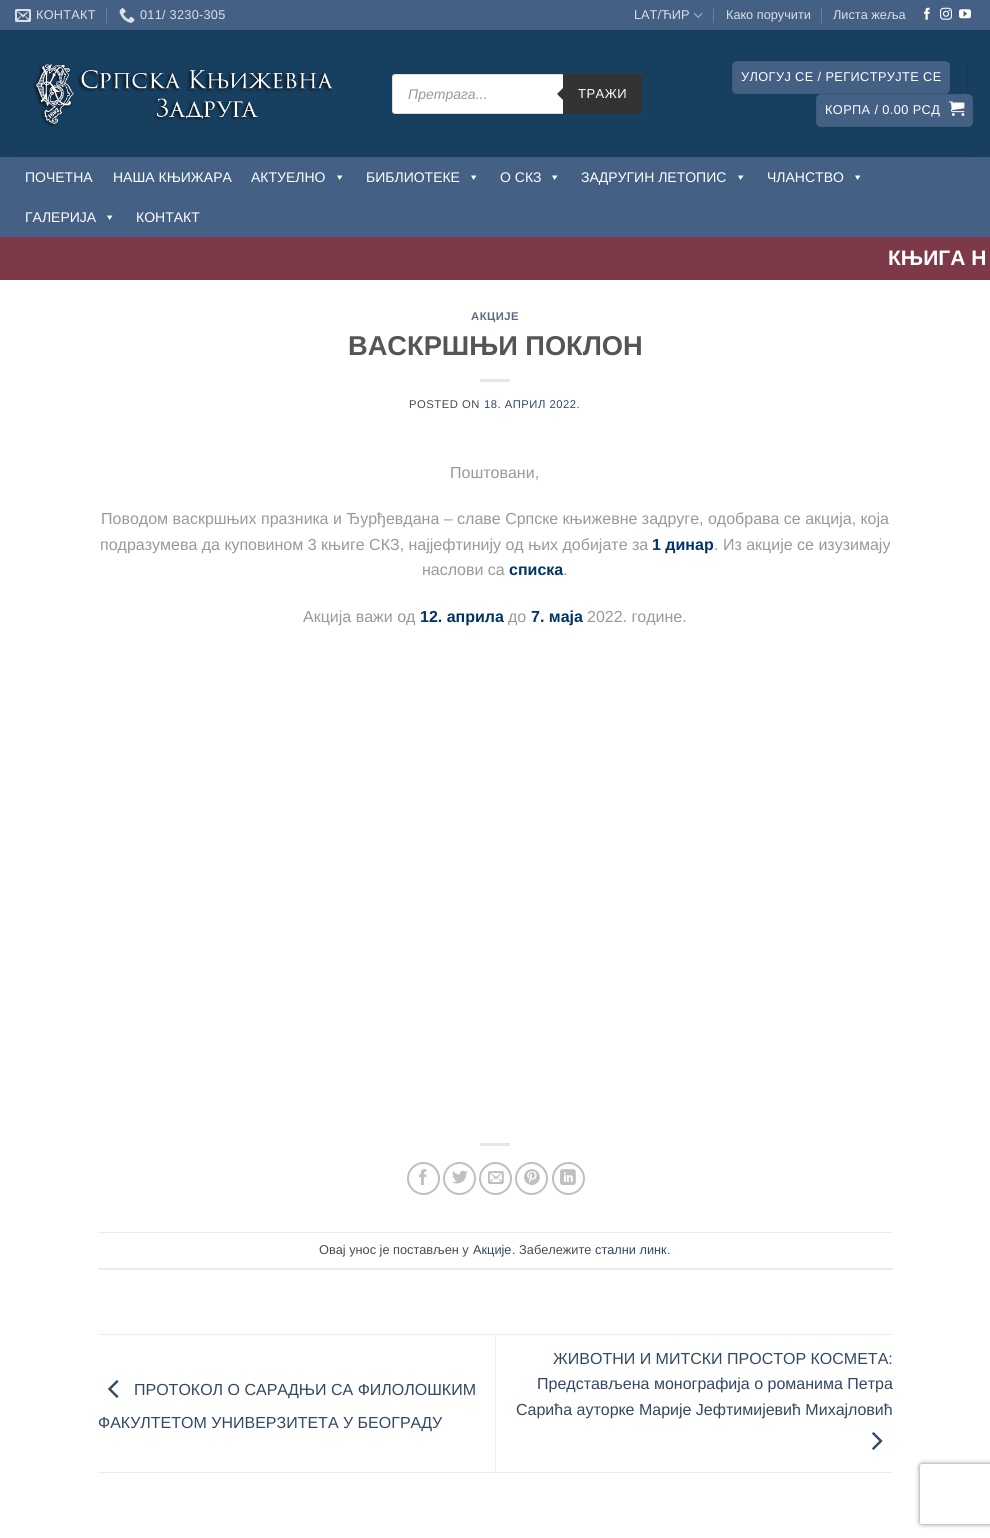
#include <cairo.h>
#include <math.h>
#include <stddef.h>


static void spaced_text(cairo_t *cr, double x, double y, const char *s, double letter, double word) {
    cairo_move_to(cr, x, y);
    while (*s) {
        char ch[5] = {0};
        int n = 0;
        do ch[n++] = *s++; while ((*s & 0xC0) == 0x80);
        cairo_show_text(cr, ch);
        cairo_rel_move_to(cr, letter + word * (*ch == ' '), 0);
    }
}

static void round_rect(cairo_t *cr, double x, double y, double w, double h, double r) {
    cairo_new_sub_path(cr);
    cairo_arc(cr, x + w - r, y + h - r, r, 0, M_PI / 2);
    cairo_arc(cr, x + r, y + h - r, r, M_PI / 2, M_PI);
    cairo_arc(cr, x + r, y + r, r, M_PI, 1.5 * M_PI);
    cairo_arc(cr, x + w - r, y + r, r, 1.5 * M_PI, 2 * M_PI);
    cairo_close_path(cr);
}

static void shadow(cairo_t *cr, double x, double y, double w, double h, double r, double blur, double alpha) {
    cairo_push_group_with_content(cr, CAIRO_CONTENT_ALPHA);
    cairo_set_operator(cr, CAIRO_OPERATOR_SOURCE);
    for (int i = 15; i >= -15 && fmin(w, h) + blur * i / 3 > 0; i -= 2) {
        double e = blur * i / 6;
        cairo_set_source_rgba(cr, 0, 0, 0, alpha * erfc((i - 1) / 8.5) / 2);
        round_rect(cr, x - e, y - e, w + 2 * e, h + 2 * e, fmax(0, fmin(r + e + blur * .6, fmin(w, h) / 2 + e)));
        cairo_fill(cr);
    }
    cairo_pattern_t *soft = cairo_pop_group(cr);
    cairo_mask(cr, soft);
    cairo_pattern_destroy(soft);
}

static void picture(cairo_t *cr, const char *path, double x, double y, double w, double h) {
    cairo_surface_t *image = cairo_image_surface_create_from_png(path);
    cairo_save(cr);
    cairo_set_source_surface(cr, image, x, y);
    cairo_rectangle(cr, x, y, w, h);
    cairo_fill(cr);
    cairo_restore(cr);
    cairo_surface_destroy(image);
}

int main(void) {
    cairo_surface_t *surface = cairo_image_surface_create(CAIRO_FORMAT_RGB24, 990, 1538);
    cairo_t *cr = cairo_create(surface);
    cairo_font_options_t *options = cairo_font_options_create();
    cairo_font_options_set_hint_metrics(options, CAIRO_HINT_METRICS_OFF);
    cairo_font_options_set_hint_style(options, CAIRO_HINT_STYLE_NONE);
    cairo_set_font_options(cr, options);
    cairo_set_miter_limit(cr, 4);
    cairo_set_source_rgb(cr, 1, 1, 1);
    cairo_paint(cr);
    cairo_set_source_rgb(cr, 0.267, 0.376, 0.518);
    cairo_rectangle(cr, 0, 0, 990, 30);
    cairo_fill(cr);
    picture(cr, "img1.png", 15, 9, 16, 13);
    cairo_select_font_face(cr, "Liberation Sans", CAIRO_FONT_SLANT_NORMAL, CAIRO_FONT_WEIGHT_NORMAL);
    cairo_set_font_size(cr, 12.75);
    cairo_set_source_rgb(cr, 0.855, 0.875, 0.902);
    spaced_text(cr, 36, 19, "КОНТАКТ", 0.25, 0);
    cairo_set_source_rgb(cr, 0.412, 0.502, 0.616);
    cairo_rectangle(cr, 106, 8, 1, 15);
    cairo_fill(cr);
    picture(cr, "img2.png", 119, 8, 16, 15);
    cairo_set_source_rgb(cr, 0.855, 0.875, 0.902);
    spaced_text(cr, 140, 19, "011/ 3230-305", 0.25, 0);
    cairo_move_to(cr, 634, 19);
    cairo_show_text(cr, "LAT/ЋИР");
    picture(cr, "img3.png", 693, 12, 10, 6);
    cairo_set_source_rgb(cr, 0.412, 0.502, 0.616);
    cairo_rectangle(cr, 713, 8, 1, 15);
    cairo_fill(cr);
    cairo_set_source_rgb(cr, 0.855, 0.875, 0.902);
    cairo_move_to(cr, 726, 19);
    cairo_show_text(cr, "Како поручити");
    cairo_set_source_rgb(cr, 0.412, 0.502, 0.616);
    cairo_rectangle(cr, 821, 8, 1, 15);
    cairo_fill(cr);
    cairo_set_source_rgb(cr, 0.855, 0.875, 0.902);
    cairo_move_to(cr, 833, 19);
    cairo_show_text(cr, "Листa жеља");
    picture(cr, "img4.png", 924, 7, 6, 13);
    picture(cr, "img5.png", 940, 7, 12, 13);
    picture(cr, "img6.png", 959, 9, 12, 10);
    cairo_set_source_rgb(cr, 0.09, 0.247, 0.373);
    cairo_rectangle(cr, 0, 30, 990, 127);
    cairo_fill(cr);
    picture(cr, "img7.png", 32, 63, 301, 64);
    cairo_set_source_rgb(cr, 1, 1, 1);
    round_rect(cr, 392.5, 74.5, 249, 39, 2.5);
    cairo_fill_preserve(cr);
    cairo_set_source_rgb(cr, 0.867, 0.867, 0.867);
    cairo_set_line_width(cr, 1);
    cairo_stroke(cr);
    cairo_select_font_face(cr, "Liberation Sans", CAIRO_FONT_SLANT_ITALIC, CAIRO_FONT_WEIGHT_NORMAL);
    cairo_set_font_size(cr, 14);
    cairo_set_source_rgb(cr, 0.6, 0.6, 0.6);
    cairo_move_to(cr, 408, 99);
    cairo_show_text(cr, "Претрага...");
    cairo_set_source_rgb(cr, 0.2, 0.2, 0.2);
    cairo_new_path(cr);
    cairo_move_to(cr, 563, 74);
    cairo_line_to(cr, 640, 74);
    cairo_curve_to(cr, 641, 74, 642, 75, 642, 76);
    cairo_line_to(cr, 642, 112);
    cairo_curve_to(cr, 642, 113, 641, 114, 640, 114);
    cairo_line_to(cr, 563, 114);
    cairo_close_path(cr);
    cairo_fill(cr);
    cairo_new_path(cr);
    cairo_move_to(cr, 565, 86);
    cairo_line_to(cr, 565, 102);
    cairo_line_to(cr, 557, 94);
    cairo_close_path(cr);
    cairo_fill(cr);
    cairo_select_font_face(cr, "Liberation Sans", CAIRO_FONT_SLANT_NORMAL, CAIRO_FONT_WEIGHT_NORMAL);
    cairo_set_font_size(cr, 13);
    cairo_set_source_rgb(cr, 1, 1, 1);
    spaced_text(cr, 578, 98, "ТРАЖИ", 0.5, 0);
    cairo_set_source_rgb(cr, 0.267, 0.376, 0.518);
    round_rect(cr, 732, 61, 218, 33, 5);
    cairo_fill(cr);
    cairo_rectangle(cr, 732.5, 61.5, 217, 32);
    cairo_set_source_rgba(cr, 0, 0, 0, 0.05);
    cairo_stroke(cr);
    cairo_set_font_size(cr, 12.75);
    cairo_set_source_rgb(cr, 1, 1, 1);
    spaced_text(cr, 741, 81, "УЛОГУЈ СЕ / РЕГИСТРУЈТЕ СЕ", 0.4, 0);
    cairo_set_source_rgb(cr, 0.082, 0.224, 0.337);
    cairo_rectangle(cr, 967, 63, 1, 30);
    cairo_fill(cr);
    cairo_set_source_rgb(cr, 0.267, 0.376, 0.518);
    round_rect(cr, 816, 94, 157, 33, 5);
    cairo_fill(cr);
    cairo_rectangle(cr, 816.5, 94.5, 156, 32);
    cairo_set_source_rgba(cr, 0, 0, 0, 0.05);
    cairo_stroke(cr);
    cairo_set_source_rgb(cr, 1, 1, 1);
    spaced_text(cr, 825, 114, "КОРПА / 0.00 РСД", 0.4, 0);
    picture(cr, "img8.png", 949, 101, 16, 15);
    cairo_set_source_rgb(cr, 0.267, 0.376, 0.518);
    cairo_rectangle(cr, 0, 157, 990, 80);
    cairo_fill(cr);
    cairo_set_source_rgb(cr, 0.271, 0.369, 0.494);
    cairo_rectangle(cr, 15, 157, 960, 1);
    cairo_fill(cr);
    cairo_set_font_size(cr, 14);
    cairo_set_source_rgb(cr, 1, 1, 1);
    cairo_move_to(cr, 25, 182);
    cairo_show_text(cr, "ПОЧЕТНА");
    cairo_move_to(cr, 113, 182);
    cairo_show_text(cr, "НАША КЊИЖАРА");
    cairo_move_to(cr, 251, 182);
    cairo_show_text(cr, "АКТУЕЛНО");
    cairo_new_path(cr);
    cairo_move_to(cr, 342.5, 175.5);
    cairo_line_to(cr, 339.5, 180);
    cairo_line_to(cr, 337, 175.5);
    cairo_close_path(cr);
    cairo_fill(cr);
    cairo_move_to(cr, 366, 182);
    cairo_show_text(cr, "БИБЛИОТЕКЕ");
    cairo_new_path(cr);
    cairo_move_to(cr, 476.5, 175.5);
    cairo_line_to(cr, 473.5, 180);
    cairo_line_to(cr, 471, 175.5);
    cairo_close_path(cr);
    cairo_fill(cr);
    cairo_move_to(cr, 500, 182);
    cairo_show_text(cr, "О СКЗ");
    cairo_new_path(cr);
    cairo_move_to(cr, 557.5, 175.5);
    cairo_line_to(cr, 554.5, 180);
    cairo_line_to(cr, 552, 175.5);
    cairo_close_path(cr);
    cairo_fill(cr);
    cairo_move_to(cr, 581, 182);
    cairo_show_text(cr, "ЗАДРУГИН ЛЕТОПИС");
    cairo_new_path(cr);
    cairo_move_to(cr, 743.5, 175.5);
    cairo_line_to(cr, 740.5, 180);
    cairo_line_to(cr, 738, 175.5);
    cairo_close_path(cr);
    cairo_fill(cr);
    cairo_move_to(cr, 767, 182);
    cairo_show_text(cr, "ЧЛАНСТВО");
    cairo_new_path(cr);
    cairo_move_to(cr, 860.5, 175.5);
    cairo_line_to(cr, 857.5, 180);
    cairo_line_to(cr, 855, 175.5);
    cairo_close_path(cr);
    cairo_fill(cr);
    cairo_move_to(cr, 25, 222);
    cairo_show_text(cr, "ГАЛЕРИЈА");
    cairo_new_path(cr);
    cairo_move_to(cr, 112.5, 215.5);
    cairo_line_to(cr, 109.5, 220);
    cairo_line_to(cr, 107, 215.5);
    cairo_close_path(cr);
    cairo_fill(cr);
    cairo_move_to(cr, 136, 222);
    cairo_show_text(cr, "КОНТАКТ");
    cairo_set_source_rgb(cr, 0.486, 0.224, 0.278);
    cairo_rectangle(cr, 0, 237, 990, 43);
    cairo_fill(cr);
    cairo_select_font_face(cr, "Liberation Sans", CAIRO_FONT_SLANT_NORMAL, CAIRO_FONT_WEIGHT_BOLD);
    cairo_set_font_size(cr, 21);
    cairo_set_source_rgb(cr, 1, 1, 1);
    cairo_move_to(cr, 888, 265);
    cairo_show_text(cr, "КЊИГА Н");
    cairo_set_font_size(cr, 11.25);
    cairo_set_source_rgb(cr, 0.361, 0.427, 0.506);
    spaced_text(cr, 471, 320, "АКЦИЈЕ", 0.5, 0);
    cairo_set_font_size(cr, 27.25);
    cairo_set_source_rgb(cr, 0.333, 0.333, 0.333);
    cairo_move_to(cr, 348, 355);
    cairo_show_text(cr, "ВАСКРШЊИ ПОКЛОН");
    cairo_set_source_rgb(cr, 0.902, 0.902, 0.902);
    cairo_rectangle(cr, 480, 379, 30, 3);
    cairo_fill(cr);
    cairo_select_font_face(cr, "Liberation Sans", CAIRO_FONT_SLANT_NORMAL, CAIRO_FONT_WEIGHT_NORMAL);
    cairo_set_font_size(cr, 11.25);
    cairo_set_source_rgb(cr, 0.29, 0.29, 0.29);
    spaced_text(cr, 409, 408, "POSTED ON", 0.5, 0);
    cairo_set_source_rgb(cr, 0.2, 0.282, 0.384);
    spaced_text(cr, 484, 408, "18. АПРИЛ 2022.", 0.5, 0);
    cairo_set_font_size(cr, 16);
    cairo_set_source_rgb(cr, 0.6, 0.6, 0.6);
    cairo_move_to(cr, 450, 478);
    cairo_show_text(cr, "Поштовани,");
    cairo_move_to(cr, 101, 524);
    cairo_show_text(cr, "Поводом васкршњих празника и Ђурђевдана ‒ славе Српске књижевне задруге, одобрава се акција, која");
    cairo_move_to(cr, 100, 550);
    cairo_show_text(cr, "подразумева да куповином 3 књиге СКЗ, најјефтинију од њих добијате за");
    cairo_select_font_face(cr, "Liberation Sans", CAIRO_FONT_SLANT_NORMAL, CAIRO_FONT_WEIGHT_BOLD);
    cairo_set_source_rgb(cr, 0, 0.2, 0.4);
    cairo_move_to(cr, 652, 550);
    cairo_show_text(cr, "1 динар");
    cairo_select_font_face(cr, "Liberation Sans", CAIRO_FONT_SLANT_NORMAL, CAIRO_FONT_WEIGHT_NORMAL);
    cairo_set_source_rgb(cr, 0.6, 0.6, 0.6);
    cairo_move_to(cr, 714, 550);
    cairo_show_text(cr, ". Из акције се изузимају");
    cairo_move_to(cr, 422, 575);
    cairo_show_text(cr, "наслови са");
    cairo_select_font_face(cr, "Liberation Sans", CAIRO_FONT_SLANT_NORMAL, CAIRO_FONT_WEIGHT_BOLD);
    cairo_set_source_rgb(cr, 0, 0.2, 0.4);
    cairo_move_to(cr, 509, 575);
    cairo_show_text(cr, "списка");
    cairo_select_font_face(cr, "Liberation Sans", CAIRO_FONT_SLANT_NORMAL, CAIRO_FONT_WEIGHT_NORMAL);
    cairo_set_source_rgb(cr, 0.6, 0.6, 0.6);
    cairo_move_to(cr, 563, 575);
    cairo_show_text(cr, ".");
    cairo_move_to(cr, 303, 622);
    cairo_show_text(cr, "Акција важи од");
    cairo_select_font_face(cr, "Liberation Sans", CAIRO_FONT_SLANT_NORMAL, CAIRO_FONT_WEIGHT_BOLD);
    cairo_set_source_rgb(cr, 0, 0.2, 0.4);
    cairo_move_to(cr, 420, 622);
    cairo_show_text(cr, "12. априла");
    cairo_select_font_face(cr, "Liberation Sans", CAIRO_FONT_SLANT_NORMAL, CAIRO_FONT_WEIGHT_NORMAL);
    cairo_set_source_rgb(cr, 0.6, 0.6, 0.6);
    cairo_move_to(cr, 508, 622);
    cairo_show_text(cr, "до");
    cairo_select_font_face(cr, "Liberation Sans", CAIRO_FONT_SLANT_NORMAL, CAIRO_FONT_WEIGHT_BOLD);
    cairo_set_source_rgb(cr, 0, 0.2, 0.4);
    cairo_move_to(cr, 531, 622);
    cairo_show_text(cr, "7. маја");
    cairo_select_font_face(cr, "Liberation Sans", CAIRO_FONT_SLANT_NORMAL, CAIRO_FONT_WEIGHT_NORMAL);
    cairo_set_source_rgb(cr, 0.6, 0.6, 0.6);
    cairo_move_to(cr, 587, 622);
    cairo_show_text(cr, "2022. године.");
    cairo_set_source_rgb(cr, 0.902, 0.902, 0.902);
    cairo_rectangle(cr, 480, 1143, 30, 3);
    cairo_fill(cr);
    cairo_arc(cr, 423.5, 1178.5, 15.5, 0, 2 * M_PI);
    cairo_set_source_rgb(cr, 0.753, 0.753, 0.753);
    cairo_set_line_width(cr, 2);
    cairo_stroke(cr);
    picture(cr, "img9.png", 419, 1169, 8, 16);
    cairo_arc(cr, 459.5, 1178.5, 15.5, 0, 2 * M_PI);
    cairo_stroke(cr);
    picture(cr, "img10.png", 452, 1170, 16, 14);
    cairo_arc(cr, 495.5, 1178.5, 15.5, 0, 2 * M_PI);
    cairo_stroke(cr);
    picture(cr, "img11.png", 488, 1171, 16, 13);
    cairo_arc(cr, 531.5, 1178.5, 15.5, 0, 2 * M_PI);
    cairo_stroke(cr);
    picture(cr, "img12.png", 524, 1169, 16, 16);
    cairo_arc(cr, 568.5, 1178.5, 15.5, 0, 2 * M_PI);
    cairo_stroke(cr);
    picture(cr, "img13.png", 560, 1169, 16, 16);
    cairo_set_source_rgb(cr, 0.925, 0.925, 0.925);
    cairo_rectangle(cr, 98, 1232, 795, 1);
    cairo_fill(cr);
    cairo_rectangle(cr, 98, 1268, 795, 2);
    cairo_fill(cr);
    cairo_set_font_size(cr, 12.75);
    cairo_set_source_rgb(cr, 0.29, 0.29, 0.29);
    cairo_move_to(cr, 319, 1254);
    cairo_show_text(cr, "Овај унос је постављен у");
    cairo_set_source_rgb(cr, 0.2, 0.282, 0.384);
    cairo_move_to(cr, 473, 1254);
    cairo_show_text(cr, "Акције");
    cairo_set_source_rgb(cr, 0.29, 0.29, 0.29);
    cairo_move_to(cr, 512, 1254);
    cairo_show_text(cr, ". Забележите");
    cairo_set_source_rgb(cr, 0.2, 0.282, 0.384);
    cairo_move_to(cr, 595, 1254);
    cairo_show_text(cr, "стални линк");
    cairo_set_source_rgb(cr, 0.29, 0.29, 0.29);
    cairo_move_to(cr, 667, 1254);
    cairo_show_text(cr, ".");
    cairo_set_source_rgb(cr, 0.925, 0.925, 0.925);
    cairo_rectangle(cr, 98, 1334, 795, 1);
    cairo_fill(cr);
    cairo_rectangle(cr, 98, 1472, 795, 1);
    cairo_fill(cr);
    picture(cr, "img14.png", 108, 1380, 11, 18);
    cairo_set_font_size(cr, 16);
    cairo_set_source_rgb(cr, 0.2, 0.282, 0.384);
    cairo_move_to(cr, 134, 1395);
    cairo_show_text(cr, "ПРОТОКОЛ О САРАДЊИ СА ФИЛОЛОШКИМ");
    cairo_move_to(cr, 98, 1428);
    cairo_show_text(cr, "ФАКУЛТЕТОМ УНИВЕРЗИТЕТА У БЕОГРАДУ");
    cairo_set_source_rgb(cr, 0.925, 0.925, 0.925);
    cairo_rectangle(cr, 495, 1335, 1, 137);
    cairo_fill(cr);
    cairo_set_source_rgb(cr, 0.2, 0.282, 0.384);
    cairo_move_to(cr, 553, 1364);
    cairo_show_text(cr, "ЖИВОТНИ И МИТСКИ ПРОСТОР КОСМЕТА:");
    cairo_move_to(cr, 537, 1389);
    cairo_show_text(cr, "Представљена монографија о романима Петра");
    cairo_move_to(cr, 516, 1415);
    cairo_show_text(cr, "Сарића ауторке Марије Јефтимијевић Михајловић");
    picture(cr, "img15.png", 872, 1432, 11, 18);
    cairo_save(cr);
    cairo_set_fill_rule(cr, CAIRO_FILL_RULE_EVEN_ODD);
    cairo_new_path(cr);
    cairo_move_to(cr, 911, 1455);
    cairo_line_to(cr, 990, 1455);
    cairo_line_to(cr, 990, 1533);
    cairo_line_to(cr, 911, 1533);
    cairo_close_path(cr);
    cairo_move_to(cr, 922, 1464);
    cairo_line_to(cr, 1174, 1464);
    cairo_curve_to(cr, 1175, 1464, 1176, 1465, 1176, 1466);
    cairo_line_to(cr, 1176, 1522);
    cairo_curve_to(cr, 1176, 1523, 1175, 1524, 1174, 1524);
    cairo_line_to(cr, 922, 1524);
    cairo_curve_to(cr, 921, 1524, 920, 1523, 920, 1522);
    cairo_line_to(cr, 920, 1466);
    cairo_curve_to(cr, 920, 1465, 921, 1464, 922, 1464);
    cairo_close_path(cr);
    cairo_clip(cr);
    cairo_set_source_rgb(cr, 0.502, 0.502, 0.502);
    shadow(cr, 920, 1464, 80, 60, 2, 2.5, 1);
    cairo_restore(cr);
    cairo_surface_write_to_png(surface, "page.png");
    cairo_font_options_destroy(options);
    cairo_destroy(cr);
    cairo_surface_destroy(surface);
    return 0;
}
